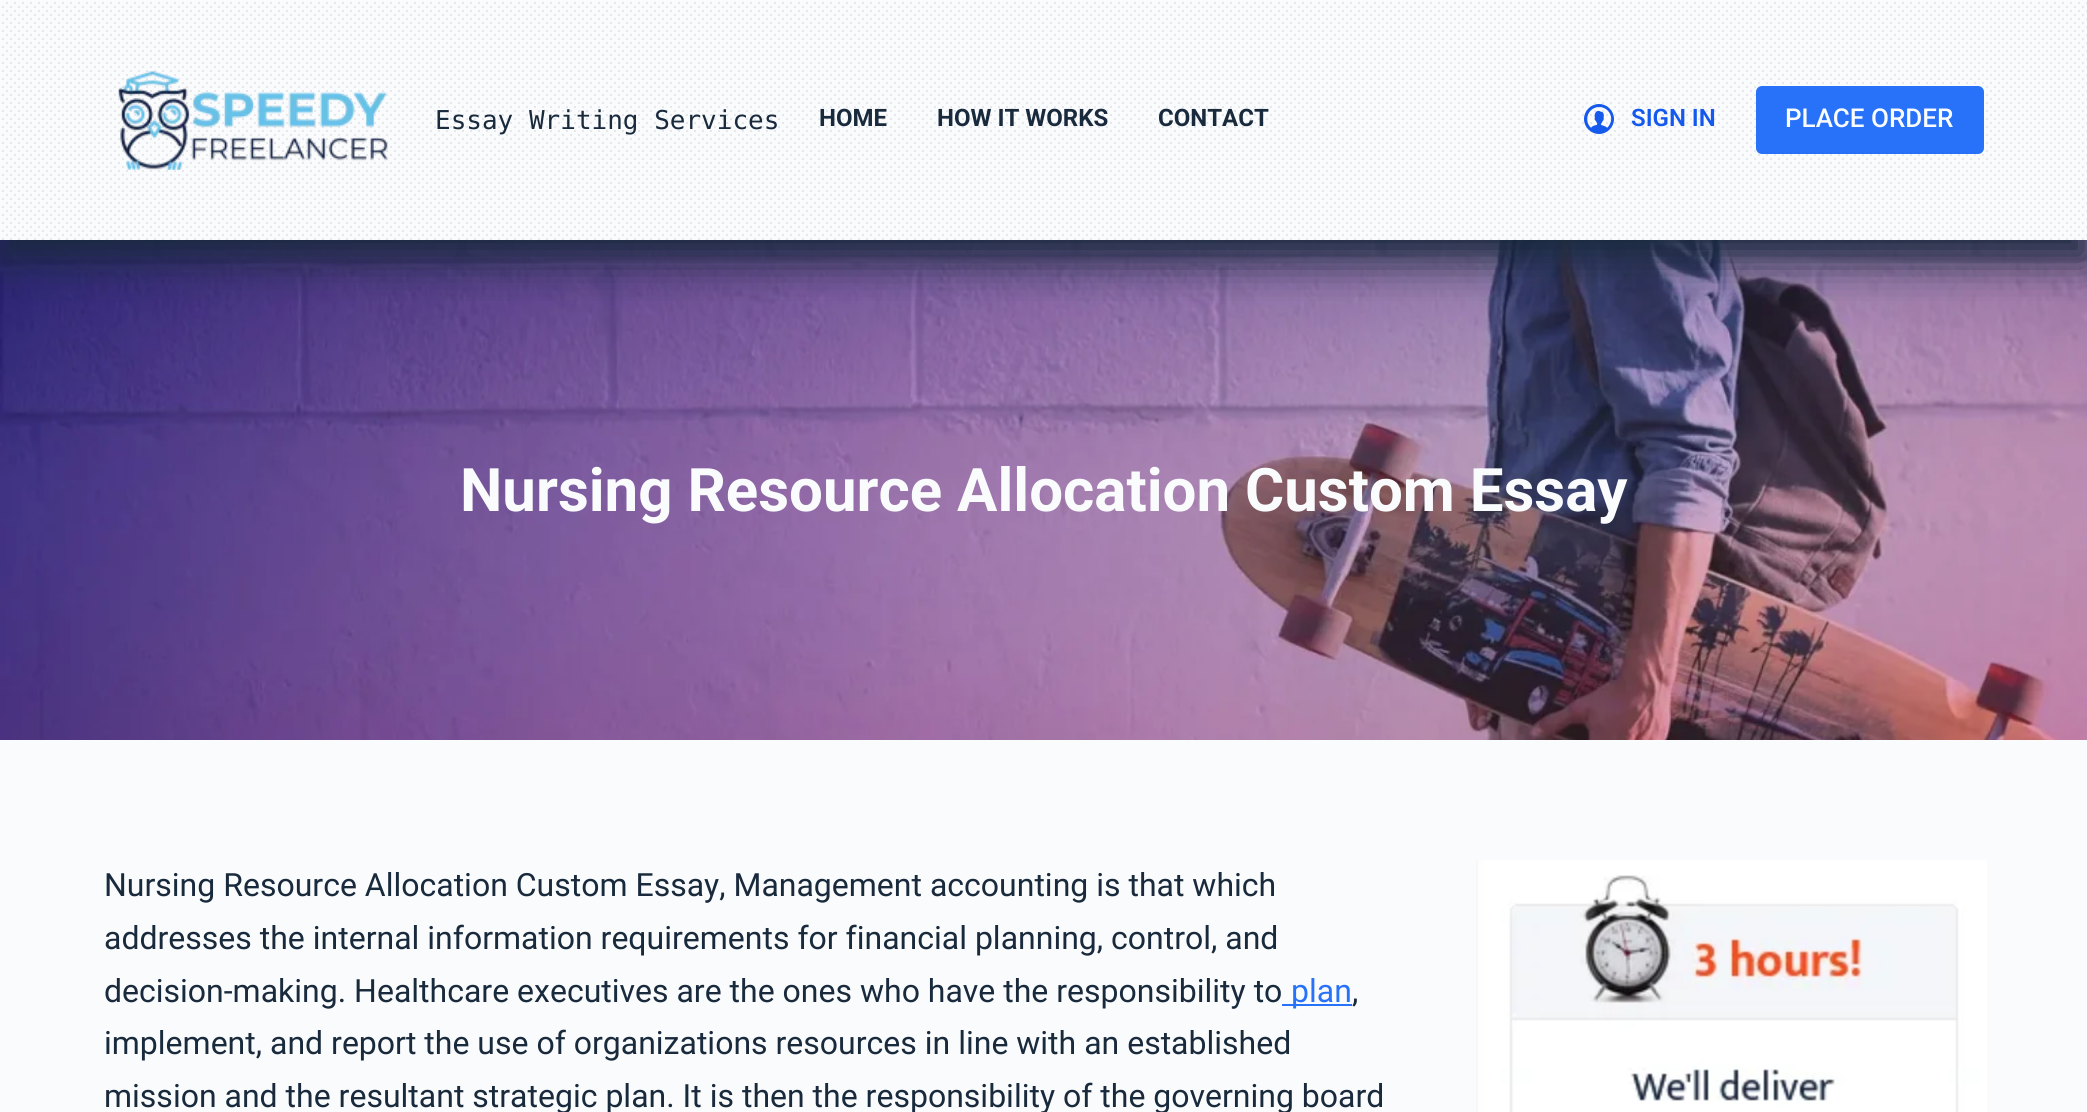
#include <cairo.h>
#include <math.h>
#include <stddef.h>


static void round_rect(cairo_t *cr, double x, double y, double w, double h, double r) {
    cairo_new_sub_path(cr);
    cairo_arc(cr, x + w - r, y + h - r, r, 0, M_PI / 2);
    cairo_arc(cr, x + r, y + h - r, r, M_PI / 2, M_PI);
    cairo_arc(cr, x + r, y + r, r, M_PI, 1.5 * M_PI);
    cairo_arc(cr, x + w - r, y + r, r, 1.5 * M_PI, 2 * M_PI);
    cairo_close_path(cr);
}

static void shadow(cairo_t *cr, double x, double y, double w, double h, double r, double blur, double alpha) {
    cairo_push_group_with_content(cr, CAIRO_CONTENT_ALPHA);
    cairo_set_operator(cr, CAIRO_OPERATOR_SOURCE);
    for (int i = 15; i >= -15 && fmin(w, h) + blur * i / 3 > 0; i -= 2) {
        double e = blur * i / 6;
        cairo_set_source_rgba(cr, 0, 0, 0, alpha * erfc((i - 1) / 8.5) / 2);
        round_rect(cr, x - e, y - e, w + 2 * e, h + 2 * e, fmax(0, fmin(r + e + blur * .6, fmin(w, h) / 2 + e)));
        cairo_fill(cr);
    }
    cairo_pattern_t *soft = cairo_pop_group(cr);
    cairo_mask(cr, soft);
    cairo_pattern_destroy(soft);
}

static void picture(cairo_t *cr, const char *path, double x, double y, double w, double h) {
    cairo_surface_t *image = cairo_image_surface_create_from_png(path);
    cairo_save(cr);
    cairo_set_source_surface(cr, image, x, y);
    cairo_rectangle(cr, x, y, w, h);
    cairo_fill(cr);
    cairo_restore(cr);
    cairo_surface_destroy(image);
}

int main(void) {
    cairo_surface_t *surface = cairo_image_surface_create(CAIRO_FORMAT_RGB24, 2087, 1112);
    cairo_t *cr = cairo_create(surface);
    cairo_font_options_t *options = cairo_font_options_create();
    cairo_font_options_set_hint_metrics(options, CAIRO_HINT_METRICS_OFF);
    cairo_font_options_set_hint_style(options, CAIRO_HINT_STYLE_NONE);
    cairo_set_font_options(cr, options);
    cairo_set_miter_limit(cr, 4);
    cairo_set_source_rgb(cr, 0.98, 0.984, 0.988);
    cairo_paint(cr);
    picture(cr, "img4.png", 0, 240, 2087, 500);
    cairo_save(cr);
    cairo_rectangle(cr, 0, 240, 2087, 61);
    cairo_clip(cr);
    cairo_set_source_rgb(cr, 0.098, 0.165, 0.239);
    shadow(cr, 0, 20, 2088, 240, 0, 20, 1);
    cairo_restore(cr);
    picture(cr, "img1.png", 2, 2, 2085, 238);
    picture(cr, "img2.png", 118, 70, 270, 100);
    cairo_select_font_face(cr, "DejaVu Sans Mono", CAIRO_FONT_SLANT_NORMAL, CAIRO_FONT_WEIGHT_NORMAL);
    cairo_set_font_size(cr, 26);
    cairo_set_source_rgb(cr, 0.098, 0.165, 0.239);
    cairo_move_to(cr, 435, 129);
    cairo_show_text(cr, "Essay Writing Services");
    cairo_select_font_face(cr, "Roboto", CAIRO_FONT_SLANT_NORMAL, CAIRO_FONT_WEIGHT_BOLD);
    cairo_set_font_size(cr, 24);
    cairo_move_to(cr, 819, 126);
    cairo_show_text(cr, "HOME");
    cairo_move_to(cr, 937, 126);
    cairo_show_text(cr, "HOW IT WORKS");
    cairo_move_to(cr, 1158, 126);
    cairo_show_text(cr, "CONTACT");
    picture(cr, "img3.png", 1584, 104, 30, 30);
    cairo_select_font_face(cr, "Roboto SemiBold", CAIRO_FONT_SLANT_NORMAL, CAIRO_FONT_WEIGHT_NORMAL);
    cairo_set_source_rgb(cr, 0.082, 0.349, 0.929);
    cairo_move_to(cr, 1631, 126);
    cairo_show_text(cr, "SIGN IN");
    cairo_set_source_rgb(cr, 0.157, 0.447, 0.98);
    round_rect(cr, 1756, 86, 228, 68, 6);
    cairo_fill(cr);
    cairo_select_font_face(cr, "Roboto Medium", CAIRO_FONT_SLANT_NORMAL, CAIRO_FONT_WEIGHT_NORMAL);
    cairo_set_font_size(cr, 26);
    cairo_set_source_rgb(cr, 0.98, 0.984, 0.988);
    cairo_move_to(cr, 1785, 127);
    cairo_show_text(cr, "PLACE ORDER");
    cairo_select_font_face(cr, "Roboto", CAIRO_FONT_SLANT_NORMAL, CAIRO_FONT_WEIGHT_BOLD);
    cairo_set_font_size(cr, 60);
    cairo_move_to(cr, 460, 511);
    cairo_show_text(cr, "Nursing Resource Allocation Custom Essay");
    cairo_select_font_face(cr, "Roboto", CAIRO_FONT_SLANT_NORMAL, CAIRO_FONT_WEIGHT_NORMAL);
    cairo_set_font_size(cr, 32);
    cairo_set_source_rgb(cr, 0.098, 0.165, 0.239);
    cairo_move_to(cr, 104, 896);
    cairo_show_text(cr, "Nursing Resource Allocation Custom Essay, Management accounting is that which");
    cairo_move_to(cr, 104, 949);
    cairo_show_text(cr, "addresses the internal information requirements for financial planning, control, and");
    cairo_move_to(cr, 104, 1002);
    cairo_show_text(cr, "decision-making. Healthcare executives are the ones who have the responsibility to");
    cairo_set_source_rgb(cr, 0.157, 0.447, 0.98);
    cairo_rectangle(cr, 1282, 1004, 70, 2);
    cairo_fill(cr);
    cairo_move_to(cr, 1291, 1002);
    cairo_show_text(cr, "plan");
    cairo_set_source_rgb(cr, 0.098, 0.165, 0.239);
    cairo_move_to(cr, 1352, 1002);
    cairo_show_text(cr, ",");
    cairo_move_to(cr, 104, 1054);
    cairo_show_text(cr, "implement, and report the use of organizations resources in line with an established");
    cairo_move_to(cr, 104, 1107);
    cairo_show_text(cr, "mission and the resultant strategic plan. It is then the responsibility of the governing board");
    picture(cr, "img5.png", 1476, 860, 511, 252);
    cairo_surface_write_to_png(surface, "page.png");
    cairo_font_options_destroy(options);
    cairo_destroy(cr);
    cairo_surface_destroy(surface);
    return 0;
}
